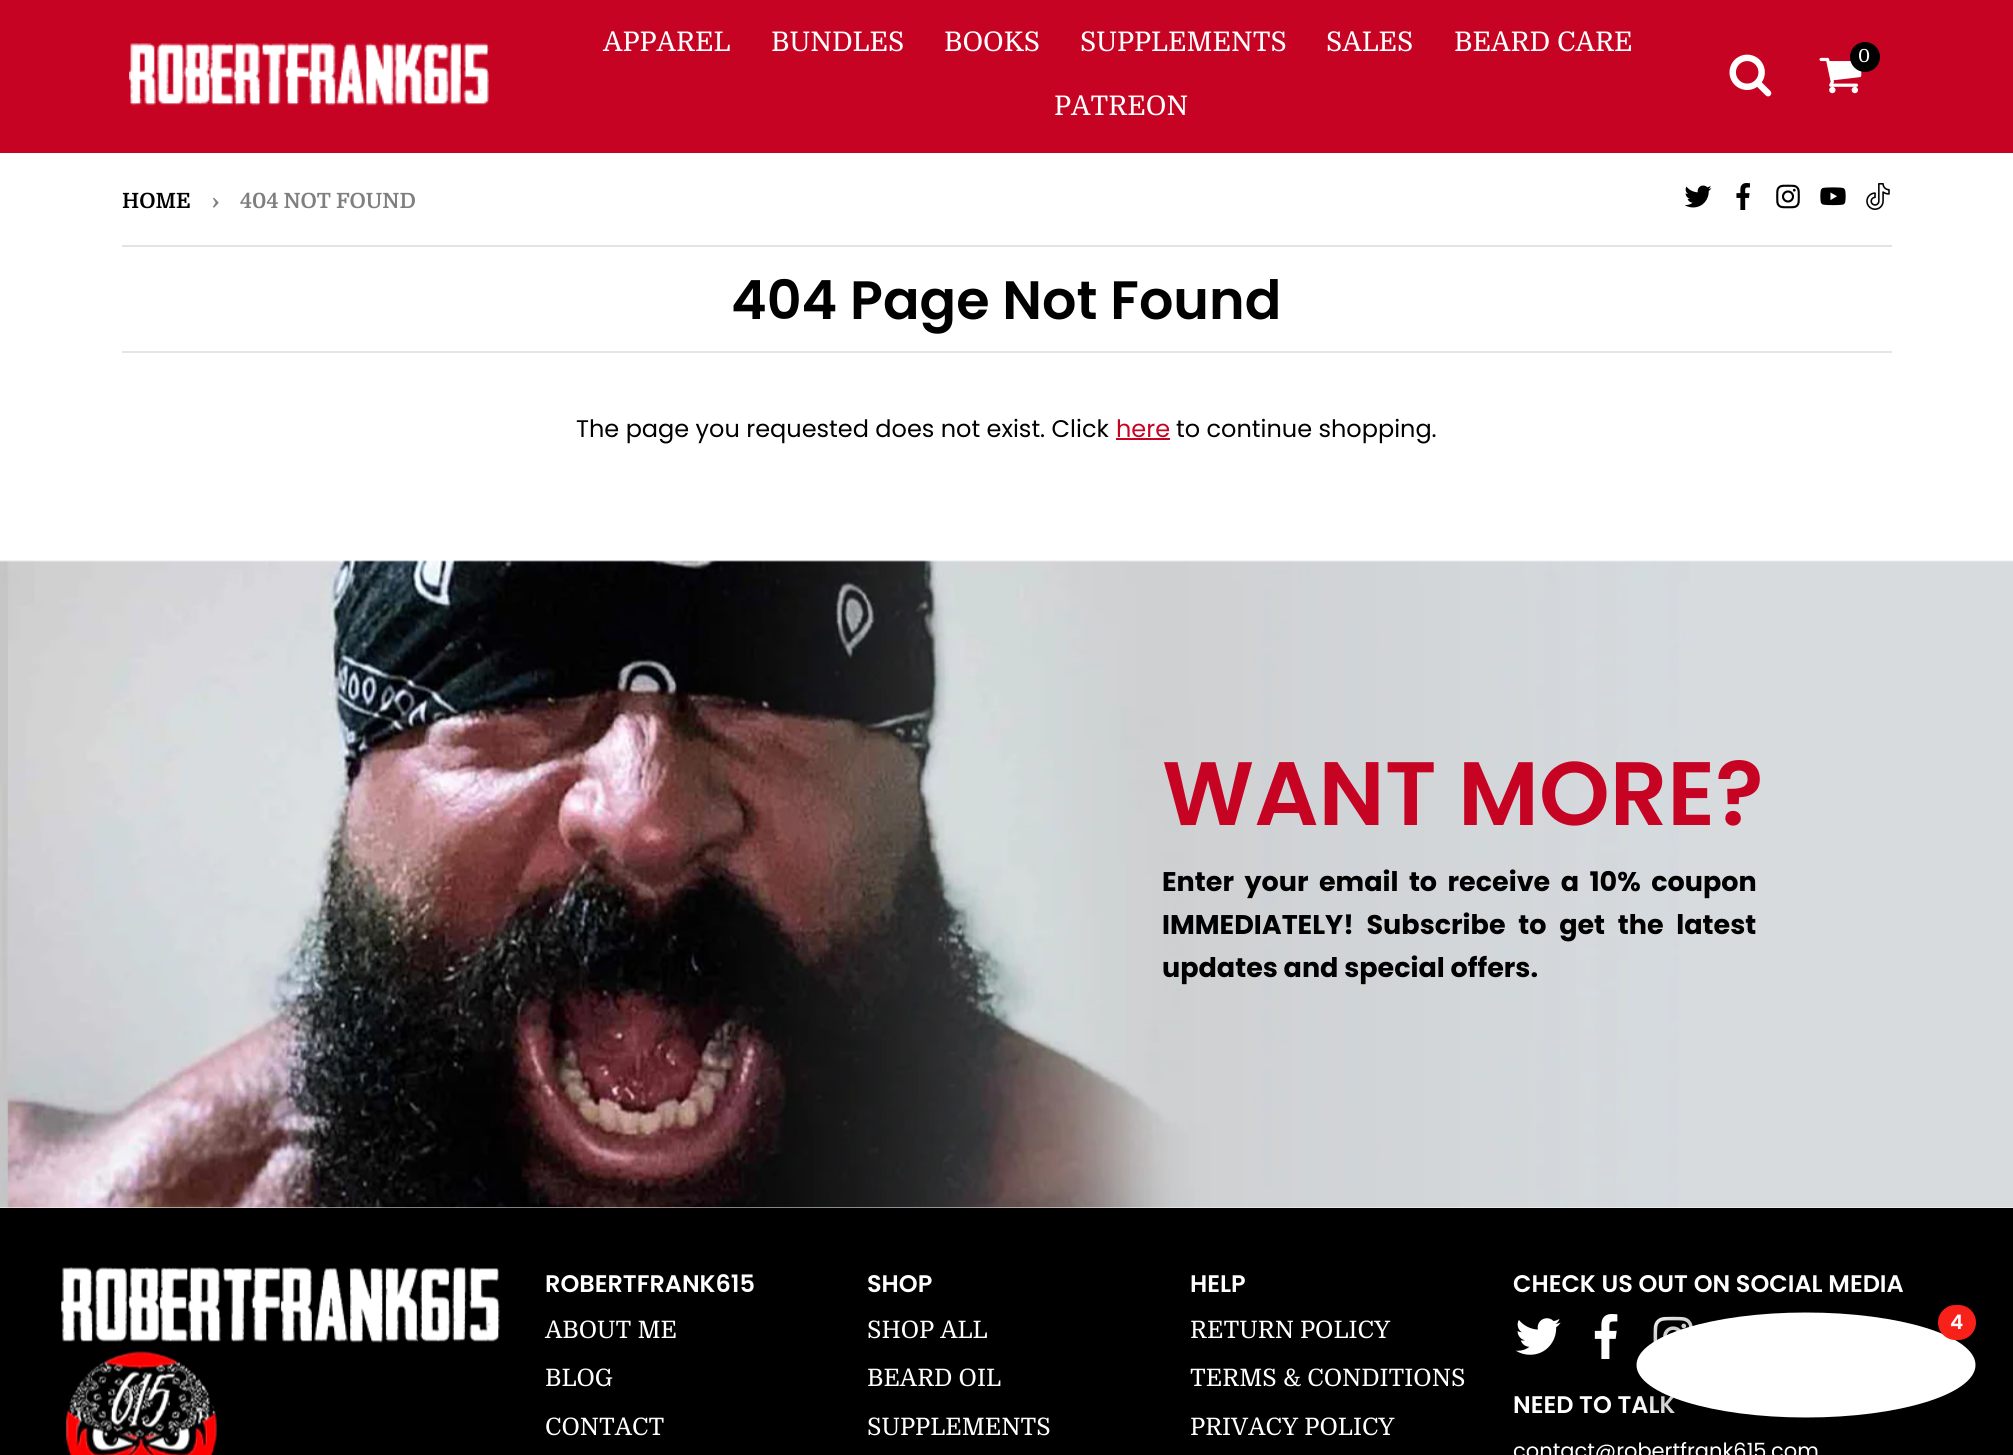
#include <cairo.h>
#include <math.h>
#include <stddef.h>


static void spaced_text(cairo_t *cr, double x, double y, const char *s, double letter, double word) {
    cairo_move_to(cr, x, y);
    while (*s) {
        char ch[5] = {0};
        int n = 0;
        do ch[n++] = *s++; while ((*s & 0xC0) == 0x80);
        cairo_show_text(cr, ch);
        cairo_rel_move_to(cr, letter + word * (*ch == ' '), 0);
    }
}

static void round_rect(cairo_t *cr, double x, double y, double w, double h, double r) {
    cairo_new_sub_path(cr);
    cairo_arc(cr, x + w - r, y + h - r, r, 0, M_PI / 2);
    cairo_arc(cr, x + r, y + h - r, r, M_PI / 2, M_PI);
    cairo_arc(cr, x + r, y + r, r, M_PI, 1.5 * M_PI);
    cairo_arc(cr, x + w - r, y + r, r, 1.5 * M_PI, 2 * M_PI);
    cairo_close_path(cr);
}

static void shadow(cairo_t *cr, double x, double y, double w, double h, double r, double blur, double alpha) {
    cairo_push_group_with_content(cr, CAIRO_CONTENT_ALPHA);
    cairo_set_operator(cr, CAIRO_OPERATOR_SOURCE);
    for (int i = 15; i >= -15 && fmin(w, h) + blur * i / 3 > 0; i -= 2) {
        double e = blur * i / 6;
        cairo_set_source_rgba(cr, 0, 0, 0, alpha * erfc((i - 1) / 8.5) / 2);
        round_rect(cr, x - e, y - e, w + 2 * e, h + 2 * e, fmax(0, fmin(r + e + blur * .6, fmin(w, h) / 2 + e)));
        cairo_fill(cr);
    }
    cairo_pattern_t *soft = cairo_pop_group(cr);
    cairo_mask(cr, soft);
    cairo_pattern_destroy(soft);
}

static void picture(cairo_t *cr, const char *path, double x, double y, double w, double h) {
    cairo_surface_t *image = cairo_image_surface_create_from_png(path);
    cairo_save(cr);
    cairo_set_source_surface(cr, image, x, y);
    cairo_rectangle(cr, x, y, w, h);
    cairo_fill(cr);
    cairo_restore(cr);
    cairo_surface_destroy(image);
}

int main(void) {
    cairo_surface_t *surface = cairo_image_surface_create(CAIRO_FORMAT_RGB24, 2013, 1455);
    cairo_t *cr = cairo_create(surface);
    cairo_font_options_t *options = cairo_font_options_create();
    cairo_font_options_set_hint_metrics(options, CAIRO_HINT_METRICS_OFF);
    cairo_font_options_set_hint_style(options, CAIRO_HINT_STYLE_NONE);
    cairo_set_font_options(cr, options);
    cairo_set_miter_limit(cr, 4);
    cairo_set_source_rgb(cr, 1, 1, 1);
    cairo_paint(cr);
    cairo_set_source_rgb(cr, 0.78, 0.012, 0.137);
    cairo_rectangle(cr, 0, 0, 2013, 153);
    cairo_fill(cr);
    picture(cr, "img1.png", 129, 43, 360, 63);
    cairo_select_font_face(cr, "Domine", CAIRO_FONT_SLANT_NORMAL, CAIRO_FONT_WEIGHT_NORMAL);
    cairo_set_font_size(cr, 27);
    cairo_set_source_rgb(cr, 1, 1, 1);
    cairo_move_to(cr, 603, 51);
    cairo_show_text(cr, "APPAREL");
    cairo_move_to(cr, 771, 51);
    cairo_show_text(cr, "BUNDLES");
    cairo_move_to(cr, 944, 51);
    cairo_show_text(cr, "BOOKS");
    cairo_move_to(cr, 1080, 51);
    cairo_show_text(cr, "SUPPLEMENTS");
    cairo_move_to(cr, 1326, 51);
    cairo_show_text(cr, "SALES");
    cairo_move_to(cr, 1454, 51);
    cairo_show_text(cr, "BEARD CARE");
    cairo_move_to(cr, 1054, 115);
    cairo_show_text(cr, "PATREON");
    picture(cr, "img2.png", 1729, 54, 43, 43);
    picture(cr, "img3.png", 1819, 57, 43, 37);
    cairo_set_source_rgb(cr, 0, 0, 0);
    cairo_arc(cr, 1865, 57, 15, 0, 2 * M_PI);
    cairo_fill(cr);
    cairo_set_font_size(cr, 18);
    cairo_set_source_rgb(cr, 1, 1, 1);
    cairo_move_to(cr, 1858, 62);
    cairo_show_text(cr, "0");
    cairo_set_source_rgb(cr, 0.89, 0.89, 0.89);
    cairo_rectangle(cr, 122, 245, 1770, 2);
    cairo_fill(cr);
    cairo_select_font_face(cr, "Domine", CAIRO_FONT_SLANT_NORMAL, CAIRO_FONT_WEIGHT_BOLD);
    cairo_set_font_size(cr, 21);
    cairo_set_source_rgb(cr, 0, 0, 0);
    cairo_move_to(cr, 122, 208);
    cairo_show_text(cr, "HOME");
    cairo_set_source_rgb(cr, 0.498, 0.498, 0.498);
    cairo_move_to(cr, 212, 208);
    cairo_show_text(cr, "›");
    cairo_move_to(cr, 240, 208);
    cairo_show_text(cr, "404 NOT FOUND");
    picture(cr, "img4.png", 1685, 185, 27, 23);
    picture(cr, "img5.png", 1736, 183, 14, 27);
    picture(cr, "img6.png", 1776, 184, 24, 25);
    picture(cr, "img7.png", 1820, 187, 26, 19);
    picture(cr, "img8.png", 1866, 183, 24, 27);
    cairo_set_source_rgb(cr, 0.898, 0.898, 0.898);
    cairo_rectangle(cr, 122, 351, 1770, 2);
    cairo_fill(cr);
    cairo_select_font_face(cr, "Poppins SemiBold", CAIRO_FONT_SLANT_NORMAL, CAIRO_FONT_WEIGHT_NORMAL);
    cairo_set_font_size(cr, 54);
    cairo_set_source_rgb(cr, 0, 0, 0);
    cairo_move_to(cr, 731, 319);
    cairo_show_text(cr, "404 Page Not Found");
    cairo_select_font_face(cr, "Poppins", CAIRO_FONT_SLANT_NORMAL, CAIRO_FONT_WEIGHT_NORMAL);
    cairo_set_font_size(cr, 24);
    cairo_move_to(cr, 576, 437);
    cairo_show_text(cr, "The page you requested does not exist. Click");
    cairo_set_source_rgb(cr, 0.78, 0.012, 0.137);
    cairo_move_to(cr, 1116, 437);
    cairo_show_text(cr, "here");
    cairo_rectangle(cr, 1116, 438, 54, 2);
    cairo_fill(cr);
    cairo_set_source_rgb(cr, 0, 0, 0);
    cairo_move_to(cr, 1176, 437);
    cairo_show_text(cr, "to continue shopping.");
    picture(cr, "img9.png", 0, 560, 2013, 648);
    cairo_select_font_face(cr, "Poppins SemiBold", CAIRO_FONT_SLANT_NORMAL, CAIRO_FONT_WEIGHT_NORMAL);
    cairo_set_font_size(cr, 90);
    cairo_set_source_rgb(cr, 0.78, 0.012, 0.137);
    cairo_move_to(cr, 1162, 825);
    cairo_show_text(cr, "WANT MORE?");
    cairo_select_font_face(cr, "Poppins", CAIRO_FONT_SLANT_NORMAL, CAIRO_FONT_WEIGHT_BOLD);
    cairo_set_font_size(cr, 27);
    cairo_set_source_rgb(cr, 0, 0, 0);
    spaced_text(cr, 1162, 891, "Enter your email to receive a 10% coupon", 0, 4.75);
    spaced_text(cr, 1162, 934, "IMMEDIATELY! Subscribe to get the latest", 0, 7);
    cairo_move_to(cr, 1162, 977);
    cairo_show_text(cr, "updates and special offers.");
    cairo_rectangle(cr, 0, 1208, 2013, 247);
    cairo_fill(cr);
    picture(cr, "img10.png", 60, 1267, 440, 188);
    cairo_select_font_face(cr, "Poppins SemiBold", CAIRO_FONT_SLANT_NORMAL, CAIRO_FONT_WEIGHT_NORMAL);
    cairo_set_font_size(cr, 24);
    cairo_set_source_rgb(cr, 1, 1, 1);
    cairo_move_to(cr, 545, 1292);
    cairo_show_text(cr, "ROBERTFRANK615");
    cairo_select_font_face(cr, "Domine", CAIRO_FONT_SLANT_NORMAL, CAIRO_FONT_WEIGHT_NORMAL);
    cairo_move_to(cr, 545, 1338);
    cairo_show_text(cr, "ABOUT ME");
    cairo_move_to(cr, 545, 1386);
    cairo_show_text(cr, "BLOG");
    cairo_move_to(cr, 545, 1435);
    cairo_show_text(cr, "CONTACT");
    cairo_select_font_face(cr, "Poppins SemiBold", CAIRO_FONT_SLANT_NORMAL, CAIRO_FONT_WEIGHT_NORMAL);
    cairo_move_to(cr, 867, 1292);
    cairo_show_text(cr, "SHOP");
    cairo_select_font_face(cr, "Domine", CAIRO_FONT_SLANT_NORMAL, CAIRO_FONT_WEIGHT_NORMAL);
    cairo_move_to(cr, 867, 1338);
    cairo_show_text(cr, "SHOP ALL");
    cairo_move_to(cr, 867, 1386);
    cairo_show_text(cr, "BEARD OIL");
    cairo_move_to(cr, 867, 1435);
    cairo_show_text(cr, "SUPPLEMENTS");
    cairo_select_font_face(cr, "Poppins SemiBold", CAIRO_FONT_SLANT_NORMAL, CAIRO_FONT_WEIGHT_NORMAL);
    cairo_move_to(cr, 1190, 1292);
    cairo_show_text(cr, "HELP");
    cairo_select_font_face(cr, "Domine", CAIRO_FONT_SLANT_NORMAL, CAIRO_FONT_WEIGHT_NORMAL);
    cairo_move_to(cr, 1190, 1338);
    cairo_show_text(cr, "RETURN POLICY");
    cairo_move_to(cr, 1190, 1386);
    cairo_show_text(cr, "TERMS & CONDITIONS");
    cairo_move_to(cr, 1190, 1435);
    cairo_show_text(cr, "PRIVACY POLICY");
    cairo_select_font_face(cr, "Poppins SemiBold", CAIRO_FONT_SLANT_NORMAL, CAIRO_FONT_WEIGHT_NORMAL);
    cairo_move_to(cr, 1513, 1292);
    cairo_show_text(cr, "CHECK US OUT ON SOCIAL MEDIA");
    picture(cr, "img11.png", 1516, 1318, 45, 37);
    picture(cr, "img12.png", 1594, 1314, 24, 45);
    picture(cr, "img13.png", 1653, 1316, 40, 27);
    cairo_move_to(cr, 1513, 1413);
    cairo_show_text(cr, "NEED TO TALK");
    cairo_select_font_face(cr, "Poppins", CAIRO_FONT_SLANT_NORMAL, CAIRO_FONT_WEIGHT_NORMAL);
    cairo_set_font_size(cr, 21);
    cairo_move_to(cr, 1513, 1458);
    cairo_show_text(cr, "contact@robertfrank615.com");
    cairo_set_source_rgb(cr, 0, 0, 0);
    shadow(cr, 1635, 1313, 342, 108, 54, 7.5, 0.2);
    cairo_set_source_rgb(cr, 1, 1, 1);
    cairo_new_path(cr);
    cairo_move_to(cr, 1806, 1312.5);
    cairo_curve_to(cr, 1899.5, 1312.5, 1975.5, 1336, 1975.5, 1365);
    cairo_curve_to(cr, 1975.5, 1394, 1899.5, 1417.5, 1806, 1417.5);
    cairo_curve_to(cr, 1712.5, 1417.5, 1636.5, 1394, 1636.5, 1365);
    cairo_curve_to(cr, 1636.5, 1336, 1712.5, 1312.5, 1806, 1312.5);
    cairo_close_path(cr);
    cairo_fill(cr);
    cairo_set_source_rgb(cr, 0.969, 0.129, 0.098);
    round_rect(cr, 1938, 1305, 38, 35, 17.5);
    cairo_fill(cr);
    cairo_select_font_face(cr, "Poppins SemiBold", CAIRO_FONT_SLANT_NORMAL, CAIRO_FONT_WEIGHT_NORMAL);
    cairo_set_font_size(cr, 20);
    cairo_set_source_rgb(cr, 1, 1, 1);
    cairo_move_to(cr, 1950, 1329);
    cairo_show_text(cr, "4");
    cairo_surface_write_to_png(surface, "page.png");
    cairo_font_options_destroy(options);
    cairo_destroy(cr);
    cairo_surface_destroy(surface);
    return 0;
}
